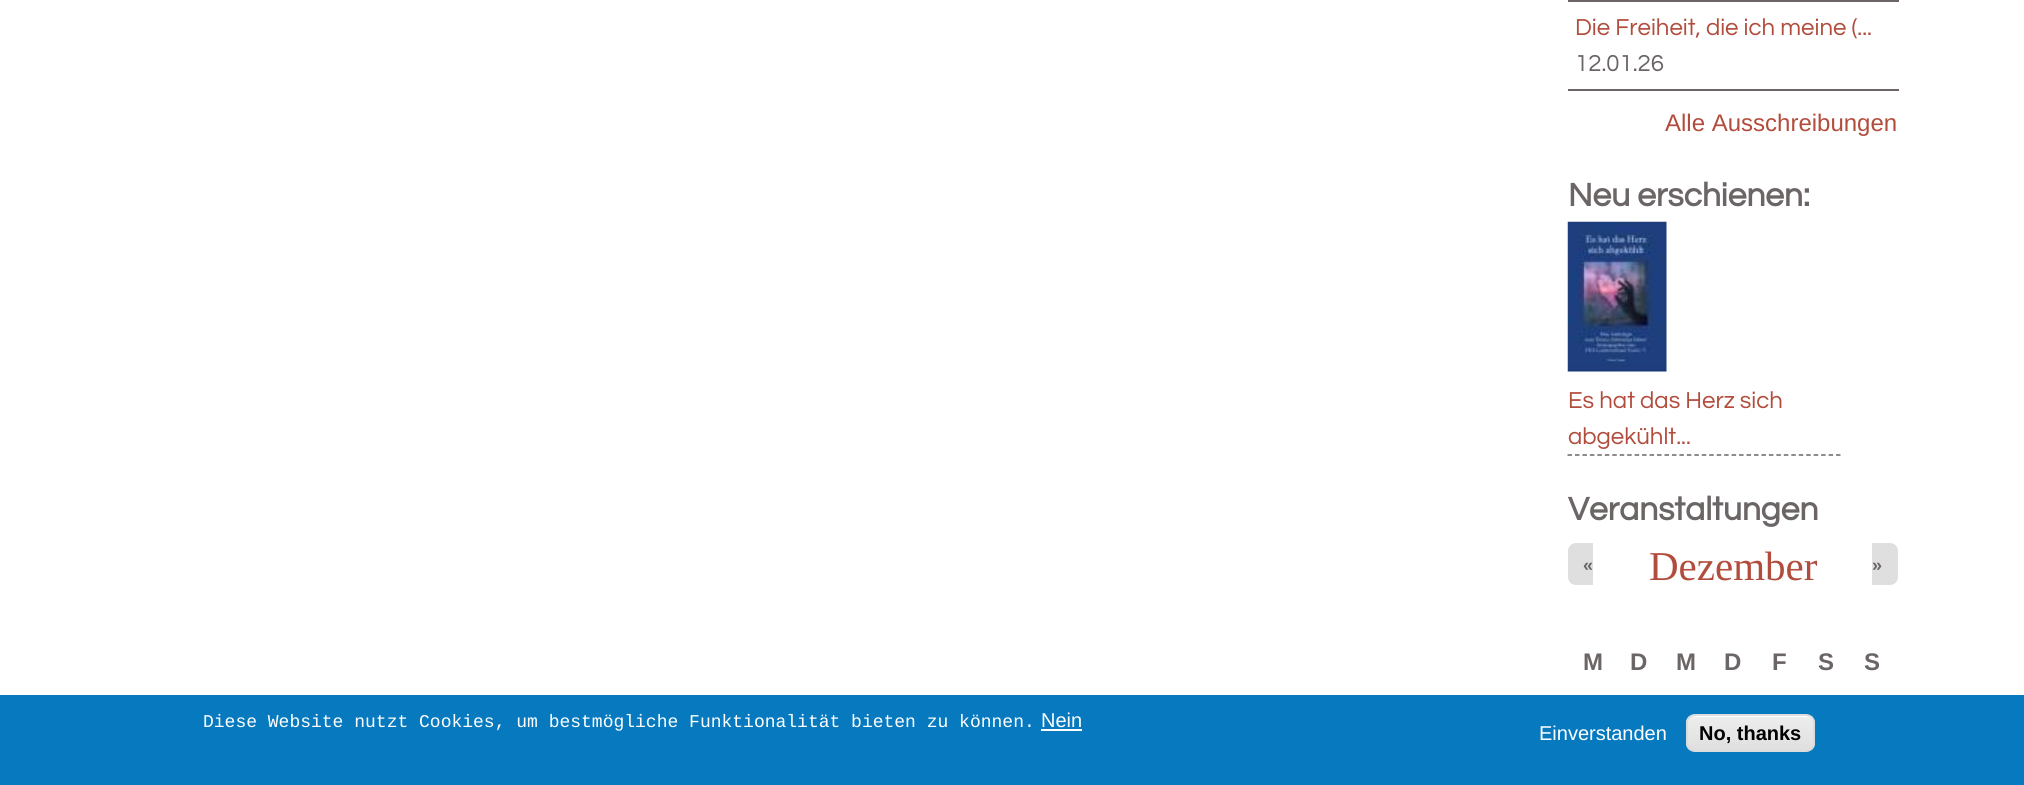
#include <cairo.h>
#include <math.h>
#include <stddef.h>


static void round_rect(cairo_t *cr, double x, double y, double w, double h, double r) {
    cairo_new_sub_path(cr);
    cairo_arc(cr, x + w - r, y + h - r, r, 0, M_PI / 2);
    cairo_arc(cr, x + r, y + h - r, r, M_PI / 2, M_PI);
    cairo_arc(cr, x + r, y + r, r, M_PI, 1.5 * M_PI);
    cairo_arc(cr, x + w - r, y + r, r, 1.5 * M_PI, 2 * M_PI);
    cairo_close_path(cr);
}

static void picture(cairo_t *cr, const char *path, double x, double y, double w, double h) {
    cairo_surface_t *image = cairo_image_surface_create_from_png(path);
    cairo_save(cr);
    cairo_set_source_surface(cr, image, x, y);
    cairo_rectangle(cr, x, y, w, h);
    cairo_fill(cr);
    cairo_restore(cr);
    cairo_surface_destroy(image);
}

int main(void) {
    cairo_surface_t *surface = cairo_image_surface_create(CAIRO_FORMAT_RGB24, 2024, 785);
    cairo_t *cr = cairo_create(surface);
    cairo_font_options_t *options = cairo_font_options_create();
    cairo_font_options_set_hint_metrics(options, CAIRO_HINT_METRICS_OFF);
    cairo_font_options_set_hint_style(options, CAIRO_HINT_STYLE_NONE);
    cairo_set_font_options(cr, options);
    cairo_set_miter_limit(cr, 4);
    cairo_pattern_t *gradient;
    cairo_set_source_rgb(cr, 1, 1, 1);
    cairo_paint(cr);
    cairo_set_source_rgb(cr, 0.42, 0.396, 0.396);
    cairo_rectangle(cr, 1568, 0, 331, 2);
    cairo_fill(cr);
    cairo_rectangle(cr, 1568, 89, 331, 2);
    cairo_fill(cr);
    cairo_select_font_face(cr, "Questrial", CAIRO_FONT_SLANT_NORMAL, CAIRO_FONT_WEIGHT_NORMAL);
    cairo_set_font_size(cr, 24);
    cairo_set_source_rgb(cr, 0.698, 0.298, 0.235);
    cairo_move_to(cr, 1575, 35);
    cairo_show_text(cr, "Die Freiheit, die ich meine (...");
    cairo_set_source_rgb(cr, 0.42, 0.396, 0.396);
    cairo_move_to(cr, 1575, 71);
    cairo_show_text(cr, "12.01.26");
    cairo_select_font_face(cr, "Liberation Sans", CAIRO_FONT_SLANT_NORMAL, CAIRO_FONT_WEIGHT_NORMAL);
    cairo_set_source_rgb(cr, 0.698, 0.298, 0.235);
    cairo_move_to(cr, 1665, 131);
    cairo_show_text(cr, "Alle Ausschreibungen");
    cairo_select_font_face(cr, "Questrial", CAIRO_FONT_SLANT_NORMAL, CAIRO_FONT_WEIGHT_BOLD);
    cairo_set_font_size(cr, 33.5);
    cairo_set_source_rgb(cr, 0.42, 0.396, 0.396);
    cairo_move_to(cr, 1568, 206);
    cairo_show_text(cr, "Neu erschienen:");
    picture(cr, "img1.png", 1567, 221, 100, 151);
    cairo_new_path(cr);
    cairo_move_to(cr, 1567.5, 455);
    cairo_line_to(cr, 1840.5, 455);
    cairo_set_line_width(cr, 1.5);
    cairo_set_dash(cr, (double[]){4.5, 2.96}, 2, 0);
    cairo_stroke(cr);
    cairo_select_font_face(cr, "Questrial", CAIRO_FONT_SLANT_NORMAL, CAIRO_FONT_WEIGHT_NORMAL);
    cairo_set_font_size(cr, 24);
    cairo_set_source_rgb(cr, 0.698, 0.298, 0.235);
    cairo_move_to(cr, 1568, 408);
    cairo_show_text(cr, "Es hat das Herz sich");
    cairo_move_to(cr, 1568, 444);
    cairo_show_text(cr, "abgekühlt...");
    cairo_select_font_face(cr, "Questrial", CAIRO_FONT_SLANT_NORMAL, CAIRO_FONT_WEIGHT_BOLD);
    cairo_set_font_size(cr, 33.5);
    cairo_set_source_rgb(cr, 0.42, 0.396, 0.396);
    cairo_move_to(cr, 1568, 520);
    cairo_show_text(cr, "Veranstaltungen");
    cairo_select_font_face(cr, "Liberation Serif", CAIRO_FONT_SLANT_NORMAL, CAIRO_FONT_WEIGHT_NORMAL);
    cairo_set_font_size(cr, 41);
    cairo_set_source_rgb(cr, 0.698, 0.298, 0.235);
    cairo_move_to(cr, 1649, 580);
    cairo_show_text(cr, "Dezember");
    cairo_set_source_rgb(cr, 0.875, 0.875, 0.875);
    cairo_new_path(cr);
    cairo_move_to(cr, 1576, 543);
    cairo_line_to(cr, 1593, 543);
    cairo_line_to(cr, 1593, 585);
    cairo_line_to(cr, 1576, 585);
    cairo_curve_to(cr, 1571.5, 585, 1568, 581.5, 1568, 577);
    cairo_line_to(cr, 1568, 551);
    cairo_curve_to(cr, 1568, 546.5, 1571.5, 543, 1576, 543);
    cairo_close_path(cr);
    cairo_fill(cr);
    cairo_select_font_face(cr, "Liberation Sans", CAIRO_FONT_SLANT_NORMAL, CAIRO_FONT_WEIGHT_BOLD);
    cairo_set_font_size(cr, 18);
    cairo_set_source_rgb(cr, 0.42, 0.396, 0.396);
    cairo_move_to(cr, 1583, 571);
    cairo_show_text(cr, "«");
    cairo_set_source_rgb(cr, 0.875, 0.875, 0.875);
    cairo_new_path(cr);
    cairo_move_to(cr, 1872, 543);
    cairo_line_to(cr, 1890, 543);
    cairo_curve_to(cr, 1894.5, 543, 1898, 546.5, 1898, 551);
    cairo_line_to(cr, 1898, 577);
    cairo_curve_to(cr, 1898, 581.5, 1894.5, 585, 1890, 585);
    cairo_line_to(cr, 1872, 585);
    cairo_close_path(cr);
    cairo_fill(cr);
    cairo_set_source_rgb(cr, 0.42, 0.396, 0.396);
    cairo_move_to(cr, 1872, 571);
    cairo_show_text(cr, "»");
    cairo_set_font_size(cr, 24);
    cairo_move_to(cr, 1583, 670);
    cairo_show_text(cr, "M");
    cairo_move_to(cr, 1630, 670);
    cairo_show_text(cr, "D");
    cairo_move_to(cr, 1676, 670);
    cairo_show_text(cr, "M");
    cairo_move_to(cr, 1724, 670);
    cairo_show_text(cr, "D");
    cairo_move_to(cr, 1772, 670);
    cairo_show_text(cr, "F");
    cairo_move_to(cr, 1818, 670);
    cairo_show_text(cr, "S");
    cairo_move_to(cr, 1864, 670);
    cairo_show_text(cr, "S");
    cairo_set_source_rgb(cr, 0.027, 0.475, 0.749);
    cairo_rectangle(cr, 0, 695, 2024, 90);
    cairo_fill(cr);
    cairo_select_font_face(cr, "Liberation Mono", CAIRO_FONT_SLANT_NORMAL, CAIRO_FONT_WEIGHT_NORMAL);
    cairo_set_font_size(cr, 18);
    cairo_set_source_rgb(cr, 1, 1, 1);
    cairo_move_to(cr, 203, 727);
    cairo_show_text(cr, "Diese Website nutzt Cookies, um bestmögliche Funktionalität bieten zu können.");
    cairo_select_font_face(cr, "Liberation Sans", CAIRO_FONT_SLANT_NORMAL, CAIRO_FONT_WEIGHT_NORMAL);
    cairo_set_font_size(cr, 20);
    cairo_move_to(cr, 1041, 727);
    cairo_show_text(cr, "Nein");
    cairo_rectangle(cr, 1041, 729, 41, 2);
    cairo_fill(cr);
    cairo_move_to(cr, 1539, 740);
    cairo_show_text(cr, "Einverstanden");
    cairo_save(cr);
    round_rect(cr, 1686, 714, 129, 38, 9);
    cairo_clip(cr);
    gradient = cairo_pattern_create_linear(1751, 716, 1751, 750);
    cairo_pattern_add_color_stop_rgba(gradient, 0.05, 0.929, 0.929, 0.929, 1);
    cairo_pattern_add_color_stop_rgba(gradient, 1, 0.875, 0.875, 0.875, 1);
    cairo_set_source(cr, gradient);
    cairo_pattern_destroy(gradient);
    cairo_rectangle(cr, 1686, 716, 129, 34);
    cairo_fill(cr);
    cairo_restore(cr);
    cairo_new_path(cr);
    cairo_move_to(cr, 1695, 717);
    cairo_line_to(cr, 1806, 717);
    cairo_curve_to(cr, 1810, 717, 1814, 720, 1814, 724);
    cairo_curve_to(cr, 1814, 720, 1810, 716, 1806, 716);
    cairo_line_to(cr, 1696, 716);
    cairo_curve_to(cr, 1692, 716, 1688, 720, 1688, 724);
    cairo_curve_to(cr, 1688, 720, 1691, 717, 1695, 717);
    cairo_close_path(cr);
    cairo_fill(cr);
    round_rect(cr, 1687, 715, 127, 36, 8);
    cairo_set_source_rgb(cr, 0.863, 0.863, 0.863);
    cairo_set_line_width(cr, 2);
    cairo_set_dash(cr, NULL, 0, 0);
    cairo_stroke(cr);
    cairo_select_font_face(cr, "Liberation Sans", CAIRO_FONT_SLANT_NORMAL, CAIRO_FONT_WEIGHT_BOLD);
    cairo_set_source_rgb(cr, 0, 0, 0);
    cairo_move_to(cr, 1699, 740);
    cairo_show_text(cr, "No, thanks");
    cairo_surface_write_to_png(surface, "page.png");
    cairo_font_options_destroy(options);
    cairo_destroy(cr);
    cairo_surface_destroy(surface);
    return 0;
}
